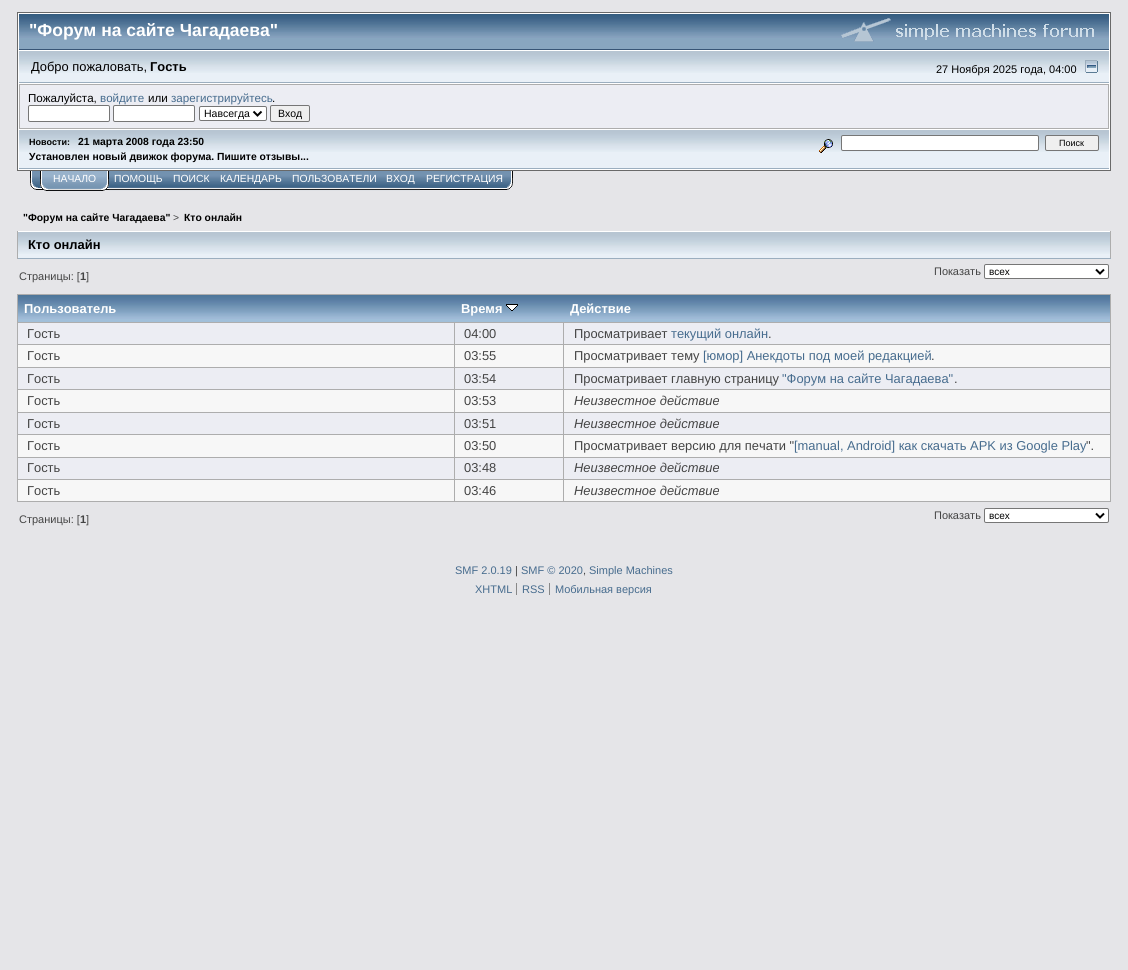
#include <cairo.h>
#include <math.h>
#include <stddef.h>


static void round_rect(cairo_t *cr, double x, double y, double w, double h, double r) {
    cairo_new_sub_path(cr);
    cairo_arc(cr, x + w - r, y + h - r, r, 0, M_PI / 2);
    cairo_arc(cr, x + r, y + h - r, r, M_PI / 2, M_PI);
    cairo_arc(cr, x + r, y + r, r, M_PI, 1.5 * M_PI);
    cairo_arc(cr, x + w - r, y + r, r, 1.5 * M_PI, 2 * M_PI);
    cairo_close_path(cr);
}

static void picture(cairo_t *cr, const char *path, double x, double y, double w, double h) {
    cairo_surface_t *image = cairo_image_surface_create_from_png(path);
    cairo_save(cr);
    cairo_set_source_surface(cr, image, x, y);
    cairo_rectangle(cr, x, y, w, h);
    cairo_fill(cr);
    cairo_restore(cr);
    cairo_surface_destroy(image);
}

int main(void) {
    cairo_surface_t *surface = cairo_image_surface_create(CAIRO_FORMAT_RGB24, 1128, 970);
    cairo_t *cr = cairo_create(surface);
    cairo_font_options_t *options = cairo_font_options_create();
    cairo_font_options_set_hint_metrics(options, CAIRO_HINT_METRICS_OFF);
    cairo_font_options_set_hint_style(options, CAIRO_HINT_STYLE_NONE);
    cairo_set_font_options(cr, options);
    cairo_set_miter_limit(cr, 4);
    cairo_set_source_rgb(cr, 0.898, 0.898, 0.91);
    cairo_paint(cr);
    cairo_set_source_rgb(cr, 1, 1, 1);
    cairo_rectangle(cr, 17.5, 12.5, 1093, 158);
    cairo_fill_preserve(cr);
    cairo_set_source_rgb(cr, 0.412, 0.412, 0.412);
    cairo_set_line_width(cr, 1);
    cairo_stroke(cr);
    cairo_set_source_rgb(cr, 0.533, 0.651, 0.753);
    cairo_rectangle(cr, 19, 38, 1090, 11);
    cairo_fill(cr);
    picture(cr, "img1.png", 19, 14, 1090, 24);
    cairo_set_source_rgb(cr, 0.216, 0.333, 0.463);
    cairo_rectangle(cr, 19, 49, 1090, 1);
    cairo_fill(cr);
    cairo_select_font_face(cr, "Liberation Sans", CAIRO_FONT_SLANT_NORMAL, CAIRO_FONT_WEIGHT_BOLD);
    cairo_set_font_size(cr, 17.5);
    cairo_set_source_rgb(cr, 1, 1, 1);
    cairo_move_to(cr, 29, 36);
    cairo_show_text(cr, "\"Форум на сайте Чагадаева\"");
    picture(cr, "img2.png", 841, 18, 253, 24);
    cairo_set_source_rgb(cr, 0.914, 0.941, 0.965);
    cairo_rectangle(cr, 19, 73, 1090, 9);
    cairo_fill(cr);
    picture(cr, "img3.png", 19, 51, 1090, 22);
    cairo_set_source_rgb(cr, 0.608, 0.682, 0.749);
    cairo_rectangle(cr, 19, 82, 1090, 1);
    cairo_fill(cr);
    cairo_select_font_face(cr, "Liberation Sans", CAIRO_FONT_SLANT_NORMAL, CAIRO_FONT_WEIGHT_NORMAL);
    cairo_set_font_size(cr, 12.9);
    cairo_set_source_rgb(cr, 0, 0, 0);
    cairo_move_to(cr, 31, 71);
    cairo_show_text(cr, "Добро пожаловать,");
    cairo_select_font_face(cr, "Liberation Sans", CAIRO_FONT_SLANT_NORMAL, CAIRO_FONT_WEIGHT_BOLD);
    cairo_move_to(cr, 150, 71);
    cairo_show_text(cr, "Гость");
    cairo_select_font_face(cr, "Liberation Sans", CAIRO_FONT_SLANT_NORMAL, CAIRO_FONT_WEIGHT_NORMAL);
    cairo_set_font_size(cr, 11);
    cairo_move_to(cr, 936, 73);
    cairo_show_text(cr, "27 Ноября 2025 года, 04:00");
    picture(cr, "img4.png", 1085, 60, 13, 13);
    cairo_set_source_rgb(cr, 0.678, 0.678, 0.678);
    cairo_rectangle(cr, 19, 84, 1090, 45);
    cairo_fill(cr);
    cairo_set_source_rgb(cr, 0.925, 0.929, 0.953);
    cairo_rectangle(cr, 20, 85, 1088, 43);
    cairo_fill(cr);
    cairo_set_font_size(cr, 11.6);
    cairo_set_source_rgb(cr, 0, 0, 0);
    cairo_move_to(cr, 28, 102);
    cairo_show_text(cr, "Пожалуйста,");
    cairo_set_source_rgb(cr, 0.278, 0.424, 0.557);
    cairo_move_to(cr, 100, 102);
    cairo_show_text(cr, "войдите");
    cairo_set_source_rgb(cr, 0, 0, 0);
    cairo_move_to(cr, 148, 102);
    cairo_show_text(cr, "или");
    cairo_set_source_rgb(cr, 0.278, 0.424, 0.557);
    cairo_move_to(cr, 171, 102);
    cairo_show_text(cr, "зарегистрируйтесь");
    cairo_set_source_rgb(cr, 0, 0, 0);
    cairo_move_to(cr, 272, 102);
    cairo_show_text(cr, ".");
    cairo_set_source_rgb(cr, 1, 1, 1);
    round_rect(cr, 28.5, 105.5, 81, 16, 1.5);
    cairo_fill_preserve(cr);
    cairo_set_source_rgb(cr, 0.463, 0.463, 0.463);
    cairo_stroke(cr);
    cairo_set_source_rgb(cr, 1, 1, 1);
    round_rect(cr, 113.5, 105.5, 81, 16, 1.5);
    cairo_fill_preserve(cr);
    cairo_set_source_rgb(cr, 0.463, 0.463, 0.463);
    cairo_stroke(cr);
    cairo_set_source_rgb(cr, 1, 1, 1);
    round_rect(cr, 199.5, 106.5, 67, 14, 1.5);
    cairo_fill_preserve(cr);
    cairo_set_source_rgb(cr, 0.463, 0.463, 0.463);
    cairo_stroke(cr);
    cairo_new_path(cr);
    cairo_move_to(cr, 253.5, 111.5);
    cairo_line_to(cr, 257.5, 115.5);
    cairo_line_to(cr, 261.5, 111.5);
    cairo_set_source_rgb(cr, 0, 0, 0);
    cairo_set_line_width(cr, 2);
    cairo_stroke(cr);
    cairo_set_font_size(cr, 10.5);
    cairo_move_to(cr, 204, 117);
    cairo_show_text(cr, "Навсегда");
    cairo_set_source_rgb(cr, 0.937, 0.937, 0.937);
    round_rect(cr, 270.5, 105.5, 39, 16, 1.5);
    cairo_fill_preserve(cr);
    cairo_set_source_rgb(cr, 0.463, 0.463, 0.463);
    cairo_set_line_width(cr, 1);
    cairo_stroke(cr);
    cairo_set_source_rgb(cr, 0, 0, 0);
    cairo_move_to(cr, 278, 117);
    cairo_show_text(cr, "Вход");
    cairo_set_source_rgb(cr, 0.914, 0.941, 0.965);
    cairo_rectangle(cr, 19, 152, 1090, 16);
    cairo_fill(cr);
    picture(cr, "img3.png", 19, 130, 1090, 22);
    cairo_set_source_rgb(cr, 0.608, 0.682, 0.749);
    cairo_rectangle(cr, 19, 168, 1090, 1);
    cairo_fill(cr);
    cairo_select_font_face(cr, "Liberation Sans", CAIRO_FONT_SLANT_NORMAL, CAIRO_FONT_WEIGHT_BOLD);
    cairo_set_font_size(cr, 9);
    cairo_set_source_rgb(cr, 0, 0, 0);
    cairo_move_to(cr, 29, 145);
    cairo_show_text(cr, "Новости:");
    cairo_set_font_size(cr, 10.35);
    cairo_move_to(cr, 78, 145);
    cairo_show_text(cr, "21 марта 2008 года 23:50");
    cairo_move_to(cr, 29, 160);
    cairo_show_text(cr, "Установлен новый движок форума. Пишите отзывы...");
    picture(cr, "img5.png", 819, 139, 14, 14);
    cairo_set_source_rgb(cr, 1, 1, 1);
    round_rect(cr, 841.5, 135.5, 197, 15, 1.5);
    cairo_fill_preserve(cr);
    cairo_set_source_rgb(cr, 0.463, 0.463, 0.463);
    cairo_stroke(cr);
    cairo_set_source_rgb(cr, 0.937, 0.937, 0.937);
    round_rect(cr, 1045.5, 135.5, 53, 15, 1.5);
    cairo_fill_preserve(cr);
    cairo_set_source_rgb(cr, 0.463, 0.463, 0.463);
    cairo_stroke(cr);
    cairo_select_font_face(cr, "Liberation Sans", CAIRO_FONT_SLANT_NORMAL, CAIRO_FONT_WEIGHT_NORMAL);
    cairo_set_font_size(cr, 9);
    cairo_set_source_rgb(cr, 0, 0, 0);
    cairo_move_to(cr, 1059, 146);
    cairo_show_text(cr, "Поиск");
    picture(cr, "img6.png", 30, 171, 10, 19);
    picture(cr, "img7.png", 101, 171, 8, 20);
    picture(cr, "img8.png", 40, 171, 8, 20);
    picture(cr, "img9.png", 48, 171, 53, 20);
    cairo_set_font_size(cr, 10.35);
    cairo_set_source_rgb(cr, 1, 1, 1);
    cairo_move_to(cr, 53, 182);
    cairo_show_text(cr, "НАЧАЛО");
    picture(cr, "img10.png", 109, 171, 59, 20);
    cairo_move_to(cr, 114, 182);
    cairo_show_text(cr, "ПОМОЩЬ");
    picture(cr, "img11.png", 168, 171, 47, 20);
    cairo_move_to(cr, 173, 182);
    cairo_show_text(cr, "ПОИСК");
    picture(cr, "img12.png", 215, 171, 72, 20);
    cairo_move_to(cr, 220, 182);
    cairo_show_text(cr, "КАЛЕНДАРЬ");
    picture(cr, "img13.png", 287, 171, 94, 20);
    cairo_move_to(cr, 292, 182);
    cairo_show_text(cr, "ПОЛЬЗОВАТЕЛИ");
    picture(cr, "img14.png", 381, 171, 39, 20);
    cairo_move_to(cr, 386, 182);
    cairo_show_text(cr, "ВХОД");
    picture(cr, "img15.png", 420, 171, 93, 19);
    cairo_move_to(cr, 426, 182);
    cairo_show_text(cr, "РЕГИСТРАЦИЯ");
    cairo_select_font_face(cr, "Liberation Sans", CAIRO_FONT_SLANT_NORMAL, CAIRO_FONT_WEIGHT_BOLD);
    cairo_set_source_rgb(cr, 0, 0, 0);
    cairo_move_to(cr, 23, 221);
    cairo_show_text(cr, "\"Форум на сайте Чагадаева\"");
    cairo_select_font_face(cr, "Liberation Sans", CAIRO_FONT_SLANT_NORMAL, CAIRO_FONT_WEIGHT_NORMAL);
    cairo_set_source_rgb(cr, 0.267, 0.267, 0.267);
    cairo_move_to(cr, 173, 221);
    cairo_show_text(cr, ">");
    cairo_select_font_face(cr, "Liberation Sans", CAIRO_FONT_SLANT_NORMAL, CAIRO_FONT_WEIGHT_BOLD);
    cairo_set_source_rgb(cr, 0, 0, 0);
    cairo_move_to(cr, 184, 221);
    cairo_show_text(cr, "Кто онлайн");
    cairo_set_source_rgb(cr, 0.914, 0.941, 0.965);
    cairo_rectangle(cr, 18, 254, 1092, 4);
    cairo_fill(cr);
    picture(cr, "img16.png", 18, 232, 1092, 22);
    cairo_set_source_rgb(cr, 1, 1, 1);
    cairo_rectangle(cr, 17, 231, 1094, 1);
    cairo_fill(cr);
    cairo_set_source_rgb(cr, 0.678, 0.678, 0.678);
    cairo_rectangle(cr, 1110, 231, 1, 28);
    cairo_fill(cr);
    cairo_set_source_rgb(cr, 0.608, 0.682, 0.749);
    cairo_rectangle(cr, 17, 258, 1094, 1);
    cairo_fill(cr);
    cairo_set_source_rgb(cr, 0.678, 0.678, 0.678);
    cairo_rectangle(cr, 17, 231, 1, 28);
    cairo_fill(cr);
    cairo_set_font_size(cr, 12.9);
    cairo_set_source_rgb(cr, 0, 0, 0);
    cairo_move_to(cr, 28, 249);
    cairo_show_text(cr, "Кто онлайн");
    cairo_select_font_face(cr, "Liberation Sans", CAIRO_FONT_SLANT_NORMAL, CAIRO_FONT_WEIGHT_NORMAL);
    cairo_set_font_size(cr, 11);
    cairo_set_source_rgb(cr, 0.267, 0.267, 0.267);
    cairo_move_to(cr, 19, 280);
    cairo_show_text(cr, "Страницы: [");
    cairo_select_font_face(cr, "Liberation Sans", CAIRO_FONT_SLANT_NORMAL, CAIRO_FONT_WEIGHT_BOLD);
    cairo_move_to(cr, 80, 280);
    cairo_show_text(cr, "1");
    cairo_select_font_face(cr, "Liberation Sans", CAIRO_FONT_SLANT_NORMAL, CAIRO_FONT_WEIGHT_NORMAL);
    cairo_move_to(cr, 86, 280);
    cairo_show_text(cr, "]");
    cairo_move_to(cr, 934, 275);
    cairo_show_text(cr, "Показать");
    cairo_set_source_rgb(cr, 1, 1, 1);
    round_rect(cr, 984.5, 264.5, 124, 14, 1.5);
    cairo_fill_preserve(cr);
    cairo_set_source_rgb(cr, 0.463, 0.463, 0.463);
    cairo_stroke(cr);
    cairo_new_path(cr);
    cairo_move_to(cr, 1096, 269.5);
    cairo_line_to(cr, 1100, 273.5);
    cairo_line_to(cr, 1104, 269.5);
    cairo_set_source_rgb(cr, 0, 0, 0);
    cairo_set_line_width(cr, 2);
    cairo_stroke(cr);
    cairo_set_font_size(cr, 10);
    cairo_move_to(cr, 989, 275);
    cairo_show_text(cr, "всех");
    cairo_set_source_rgb(cr, 0.678, 0.678, 0.678);
    cairo_rectangle(cr, 17, 294, 1094, 1);
    cairo_fill(cr);
    cairo_rectangle(cr, 1110, 294, 1, 208);
    cairo_fill(cr);
    cairo_rectangle(cr, 17, 501, 1094, 1);
    cairo_fill(cr);
    cairo_rectangle(cr, 17, 294, 1, 208);
    cairo_fill(cr);
    cairo_set_source_rgb(cr, 0.631, 0.749, 0.851);
    cairo_rectangle(cr, 18, 319, 1092, 3);
    cairo_fill(cr);
    picture(cr, "img17.png", 18, 295, 437, 24);
    cairo_select_font_face(cr, "Liberation Sans", CAIRO_FONT_SLANT_NORMAL, CAIRO_FONT_WEIGHT_BOLD);
    cairo_set_font_size(cr, 12.9);
    cairo_set_source_rgb(cr, 1, 1, 1);
    cairo_move_to(cr, 24, 313);
    cairo_show_text(cr, "Пользователь");
    picture(cr, "img18.png", 455, 295, 109, 24);
    cairo_move_to(cr, 461, 313);
    cairo_show_text(cr, "Время");
    picture(cr, "img19.png", 506, 304, 12, 7);
    picture(cr, "img20.png", 564, 295, 546, 24);
    cairo_move_to(cr, 570, 313);
    cairo_show_text(cr, "Действие");
    cairo_set_source_rgb(cr, 0.925, 0.929, 0.953);
    cairo_rectangle(cr, 18, 323, 1092, 21);
    cairo_fill(cr);
    cairo_set_source_rgb(cr, 0.678, 0.678, 0.678);
    cairo_rectangle(cr, 563, 322, 548, 1);
    cairo_fill(cr);
    cairo_rectangle(cr, 563, 344, 548, 1);
    cairo_fill(cr);
    cairo_set_source_rgb(cr, 0.965, 0.965, 0.965);
    cairo_rectangle(cr, 18, 345, 1092, 22);
    cairo_fill(cr);
    cairo_set_source_rgb(cr, 0.678, 0.678, 0.678);
    cairo_rectangle(cr, 563, 367, 548, 1);
    cairo_fill(cr);
    cairo_set_source_rgb(cr, 0.925, 0.929, 0.953);
    cairo_rectangle(cr, 18, 368, 1092, 21);
    cairo_fill(cr);
    cairo_set_source_rgb(cr, 0.678, 0.678, 0.678);
    cairo_rectangle(cr, 563, 389, 548, 1);
    cairo_fill(cr);
    cairo_set_source_rgb(cr, 0.965, 0.965, 0.965);
    cairo_rectangle(cr, 18, 390, 1092, 22);
    cairo_fill(cr);
    cairo_set_source_rgb(cr, 0.678, 0.678, 0.678);
    cairo_rectangle(cr, 563, 412, 548, 1);
    cairo_fill(cr);
    cairo_set_source_rgb(cr, 0.925, 0.929, 0.953);
    cairo_rectangle(cr, 18, 413, 1092, 21);
    cairo_fill(cr);
    cairo_set_source_rgb(cr, 0.678, 0.678, 0.678);
    cairo_rectangle(cr, 563, 434, 548, 1);
    cairo_fill(cr);
    cairo_set_source_rgb(cr, 0.965, 0.965, 0.965);
    cairo_rectangle(cr, 18, 435, 1092, 22);
    cairo_fill(cr);
    cairo_set_source_rgb(cr, 0.678, 0.678, 0.678);
    cairo_rectangle(cr, 563, 457, 548, 1);
    cairo_fill(cr);
    cairo_set_source_rgb(cr, 0.925, 0.929, 0.953);
    cairo_rectangle(cr, 18, 458, 1092, 21);
    cairo_fill(cr);
    cairo_set_source_rgb(cr, 0.678, 0.678, 0.678);
    cairo_rectangle(cr, 563, 479, 548, 1);
    cairo_fill(cr);
    cairo_set_source_rgb(cr, 0.965, 0.965, 0.965);
    cairo_rectangle(cr, 18, 480, 1092, 21);
    cairo_fill(cr);
    cairo_set_source_rgb(cr, 0.678, 0.678, 0.678);
    cairo_rectangle(cr, 563, 479, 1, 23);
    cairo_fill(cr);
    cairo_rectangle(cr, 454, 479, 110, 1);
    cairo_fill(cr);
    cairo_rectangle(cr, 563, 457, 1, 23);
    cairo_fill(cr);
    cairo_rectangle(cr, 454, 457, 110, 1);
    cairo_fill(cr);
    cairo_rectangle(cr, 563, 434, 1, 24);
    cairo_fill(cr);
    cairo_rectangle(cr, 454, 434, 110, 1);
    cairo_fill(cr);
    cairo_rectangle(cr, 563, 412, 1, 23);
    cairo_fill(cr);
    cairo_rectangle(cr, 454, 412, 110, 1);
    cairo_fill(cr);
    cairo_rectangle(cr, 563, 389, 1, 24);
    cairo_fill(cr);
    cairo_rectangle(cr, 454, 389, 110, 1);
    cairo_fill(cr);
    cairo_rectangle(cr, 563, 367, 1, 23);
    cairo_fill(cr);
    cairo_rectangle(cr, 454, 367, 110, 1);
    cairo_fill(cr);
    cairo_rectangle(cr, 563, 344, 1, 24);
    cairo_fill(cr);
    cairo_rectangle(cr, 454, 344, 110, 1);
    cairo_fill(cr);
    cairo_rectangle(cr, 563, 322, 1, 23);
    cairo_fill(cr);
    cairo_rectangle(cr, 454, 322, 110, 1);
    cairo_fill(cr);
    cairo_rectangle(cr, 454, 479, 1, 23);
    cairo_fill(cr);
    cairo_rectangle(cr, 17, 479, 438, 1);
    cairo_fill(cr);
    cairo_rectangle(cr, 454, 457, 1, 23);
    cairo_fill(cr);
    cairo_rectangle(cr, 17, 457, 438, 1);
    cairo_fill(cr);
    cairo_rectangle(cr, 454, 434, 1, 24);
    cairo_fill(cr);
    cairo_rectangle(cr, 17, 434, 438, 1);
    cairo_fill(cr);
    cairo_rectangle(cr, 454, 412, 1, 23);
    cairo_fill(cr);
    cairo_rectangle(cr, 17, 412, 438, 1);
    cairo_fill(cr);
    cairo_rectangle(cr, 454, 389, 1, 24);
    cairo_fill(cr);
    cairo_rectangle(cr, 17, 389, 438, 1);
    cairo_fill(cr);
    cairo_rectangle(cr, 454, 367, 1, 23);
    cairo_fill(cr);
    cairo_rectangle(cr, 17, 367, 438, 1);
    cairo_fill(cr);
    cairo_rectangle(cr, 454, 344, 1, 24);
    cairo_fill(cr);
    cairo_rectangle(cr, 17, 344, 438, 1);
    cairo_fill(cr);
    cairo_rectangle(cr, 454, 322, 1, 23);
    cairo_fill(cr);
    cairo_rectangle(cr, 17, 322, 438, 1);
    cairo_fill(cr);
    cairo_select_font_face(cr, "Liberation Sans", CAIRO_FONT_SLANT_NORMAL, CAIRO_FONT_WEIGHT_NORMAL);
    cairo_set_source_rgb(cr, 0.267, 0.267, 0.267);
    cairo_move_to(cr, 27, 338);
    cairo_show_text(cr, "Гость");
    cairo_move_to(cr, 464, 338);
    cairo_show_text(cr, "04:00");
    cairo_move_to(cr, 574, 338);
    cairo_show_text(cr, "Просматривает");
    cairo_set_source_rgb(cr, 0.278, 0.424, 0.557);
    cairo_move_to(cr, 671, 338);
    cairo_show_text(cr, "текущий онлайн");
    cairo_set_source_rgb(cr, 0.267, 0.267, 0.267);
    cairo_move_to(cr, 768, 338);
    cairo_show_text(cr, ".");
    cairo_move_to(cr, 27, 360);
    cairo_show_text(cr, "Гость");
    cairo_move_to(cr, 464, 360);
    cairo_show_text(cr, "03:55");
    cairo_move_to(cr, 574, 360);
    cairo_show_text(cr, "Просматривает тему");
    cairo_set_source_rgb(cr, 0.278, 0.424, 0.557);
    cairo_move_to(cr, 703, 360);
    cairo_show_text(cr, "[юмор] Анекдоты под моей редакцией");
    cairo_set_source_rgb(cr, 0.267, 0.267, 0.267);
    cairo_move_to(cr, 931, 360);
    cairo_show_text(cr, ".");
    cairo_move_to(cr, 27, 383);
    cairo_show_text(cr, "Гость");
    cairo_move_to(cr, 464, 383);
    cairo_show_text(cr, "03:54");
    cairo_move_to(cr, 574, 383);
    cairo_show_text(cr, "Просматривает главную страницу");
    cairo_set_source_rgb(cr, 0.278, 0.424, 0.557);
    cairo_move_to(cr, 782, 383);
    cairo_show_text(cr, "\"Форум на сайте Чагадаева\"");
    cairo_set_source_rgb(cr, 0.267, 0.267, 0.267);
    cairo_move_to(cr, 954, 383);
    cairo_show_text(cr, ".");
    cairo_move_to(cr, 27, 405);
    cairo_show_text(cr, "Гость");
    cairo_move_to(cr, 464, 405);
    cairo_show_text(cr, "03:53");
    cairo_select_font_face(cr, "Liberation Sans", CAIRO_FONT_SLANT_ITALIC, CAIRO_FONT_WEIGHT_NORMAL);
    cairo_move_to(cr, 574, 405);
    cairo_show_text(cr, "Неизвестное действие");
    cairo_select_font_face(cr, "Liberation Sans", CAIRO_FONT_SLANT_NORMAL, CAIRO_FONT_WEIGHT_NORMAL);
    cairo_move_to(cr, 27, 428);
    cairo_show_text(cr, "Гость");
    cairo_move_to(cr, 464, 428);
    cairo_show_text(cr, "03:51");
    cairo_select_font_face(cr, "Liberation Sans", CAIRO_FONT_SLANT_ITALIC, CAIRO_FONT_WEIGHT_NORMAL);
    cairo_move_to(cr, 574, 428);
    cairo_show_text(cr, "Неизвестное действие");
    cairo_select_font_face(cr, "Liberation Sans", CAIRO_FONT_SLANT_NORMAL, CAIRO_FONT_WEIGHT_NORMAL);
    cairo_move_to(cr, 27, 450);
    cairo_show_text(cr, "Гость");
    cairo_move_to(cr, 464, 450);
    cairo_show_text(cr, "03:50");
    cairo_move_to(cr, 574, 450);
    cairo_show_text(cr, "Просматривает версию для печати \"");
    cairo_set_source_rgb(cr, 0.278, 0.424, 0.557);
    cairo_move_to(cr, 794, 450);
    cairo_show_text(cr, "[manual, Android] как скачать APK из Google Play");
    cairo_set_source_rgb(cr, 0.267, 0.267, 0.267);
    cairo_move_to(cr, 1086, 450);
    cairo_show_text(cr, "\".");
    cairo_move_to(cr, 27, 472);
    cairo_show_text(cr, "Гость");
    cairo_move_to(cr, 464, 472);
    cairo_show_text(cr, "03:48");
    cairo_select_font_face(cr, "Liberation Sans", CAIRO_FONT_SLANT_ITALIC, CAIRO_FONT_WEIGHT_NORMAL);
    cairo_move_to(cr, 574, 472);
    cairo_show_text(cr, "Неизвестное действие");
    cairo_select_font_face(cr, "Liberation Sans", CAIRO_FONT_SLANT_NORMAL, CAIRO_FONT_WEIGHT_NORMAL);
    cairo_move_to(cr, 27, 495);
    cairo_show_text(cr, "Гость");
    cairo_move_to(cr, 464, 495);
    cairo_show_text(cr, "03:46");
    cairo_select_font_face(cr, "Liberation Sans", CAIRO_FONT_SLANT_ITALIC, CAIRO_FONT_WEIGHT_NORMAL);
    cairo_move_to(cr, 574, 495);
    cairo_show_text(cr, "Неизвестное действие");
    cairo_select_font_face(cr, "Liberation Sans", CAIRO_FONT_SLANT_NORMAL, CAIRO_FONT_WEIGHT_NORMAL);
    cairo_set_font_size(cr, 11);
    cairo_move_to(cr, 19, 523);
    cairo_show_text(cr, "Страницы: [");
    cairo_select_font_face(cr, "Liberation Sans", CAIRO_FONT_SLANT_NORMAL, CAIRO_FONT_WEIGHT_BOLD);
    cairo_move_to(cr, 80, 523);
    cairo_show_text(cr, "1");
    cairo_select_font_face(cr, "Liberation Sans", CAIRO_FONT_SLANT_NORMAL, CAIRO_FONT_WEIGHT_NORMAL);
    cairo_move_to(cr, 86, 523);
    cairo_show_text(cr, "]");
    cairo_move_to(cr, 934, 519);
    cairo_show_text(cr, "Показать");
    cairo_set_source_rgb(cr, 1, 1, 1);
    round_rect(cr, 984.5, 508.5, 124, 14, 1.5);
    cairo_fill_preserve(cr);
    cairo_set_source_rgb(cr, 0.463, 0.463, 0.463);
    cairo_set_line_width(cr, 1);
    cairo_stroke(cr);
    cairo_new_path(cr);
    cairo_move_to(cr, 1096, 513.5);
    cairo_line_to(cr, 1100, 517.5);
    cairo_line_to(cr, 1104, 513.5);
    cairo_set_source_rgb(cr, 0, 0, 0);
    cairo_set_line_width(cr, 2);
    cairo_stroke(cr);
    cairo_set_font_size(cr, 10);
    cairo_move_to(cr, 989, 519);
    cairo_show_text(cr, "всех");
    cairo_set_font_size(cr, 11);
    cairo_set_source_rgb(cr, 0.278, 0.424, 0.557);
    cairo_move_to(cr, 455, 574);
    cairo_show_text(cr, "SMF 2.0.19");
    cairo_set_source_rgb(cr, 0.267, 0.267, 0.267);
    cairo_move_to(cr, 515, 574);
    cairo_show_text(cr, "|");
    cairo_set_source_rgb(cr, 0.278, 0.424, 0.557);
    cairo_move_to(cr, 521, 574);
    cairo_show_text(cr, "SMF © 2020");
    cairo_set_source_rgb(cr, 0.267, 0.267, 0.267);
    cairo_move_to(cr, 583, 574);
    cairo_show_text(cr, ",");
    cairo_set_source_rgb(cr, 0.278, 0.424, 0.557);
    cairo_move_to(cr, 589, 574);
    cairo_show_text(cr, "Simple Machines");
    cairo_move_to(cr, 475, 593);
    cairo_show_text(cr, "XHTML");
    cairo_set_source_rgb(cr, 0.533, 0.533, 0.533);
    cairo_rectangle(cr, 516, 583, 1, 12);
    cairo_fill(cr);
    cairo_set_source_rgb(cr, 0.278, 0.424, 0.557);
    cairo_move_to(cr, 522, 593);
    cairo_show_text(cr, "RSS");
    cairo_set_source_rgb(cr, 0.533, 0.533, 0.533);
    cairo_rectangle(cr, 549, 583, 1, 12);
    cairo_fill(cr);
    cairo_set_source_rgb(cr, 0.278, 0.424, 0.557);
    cairo_move_to(cr, 555, 593);
    cairo_show_text(cr, "Мобильная версия");
    cairo_surface_write_to_png(surface, "page.png");
    cairo_font_options_destroy(options);
    cairo_destroy(cr);
    cairo_surface_destroy(surface);
    return 0;
}
